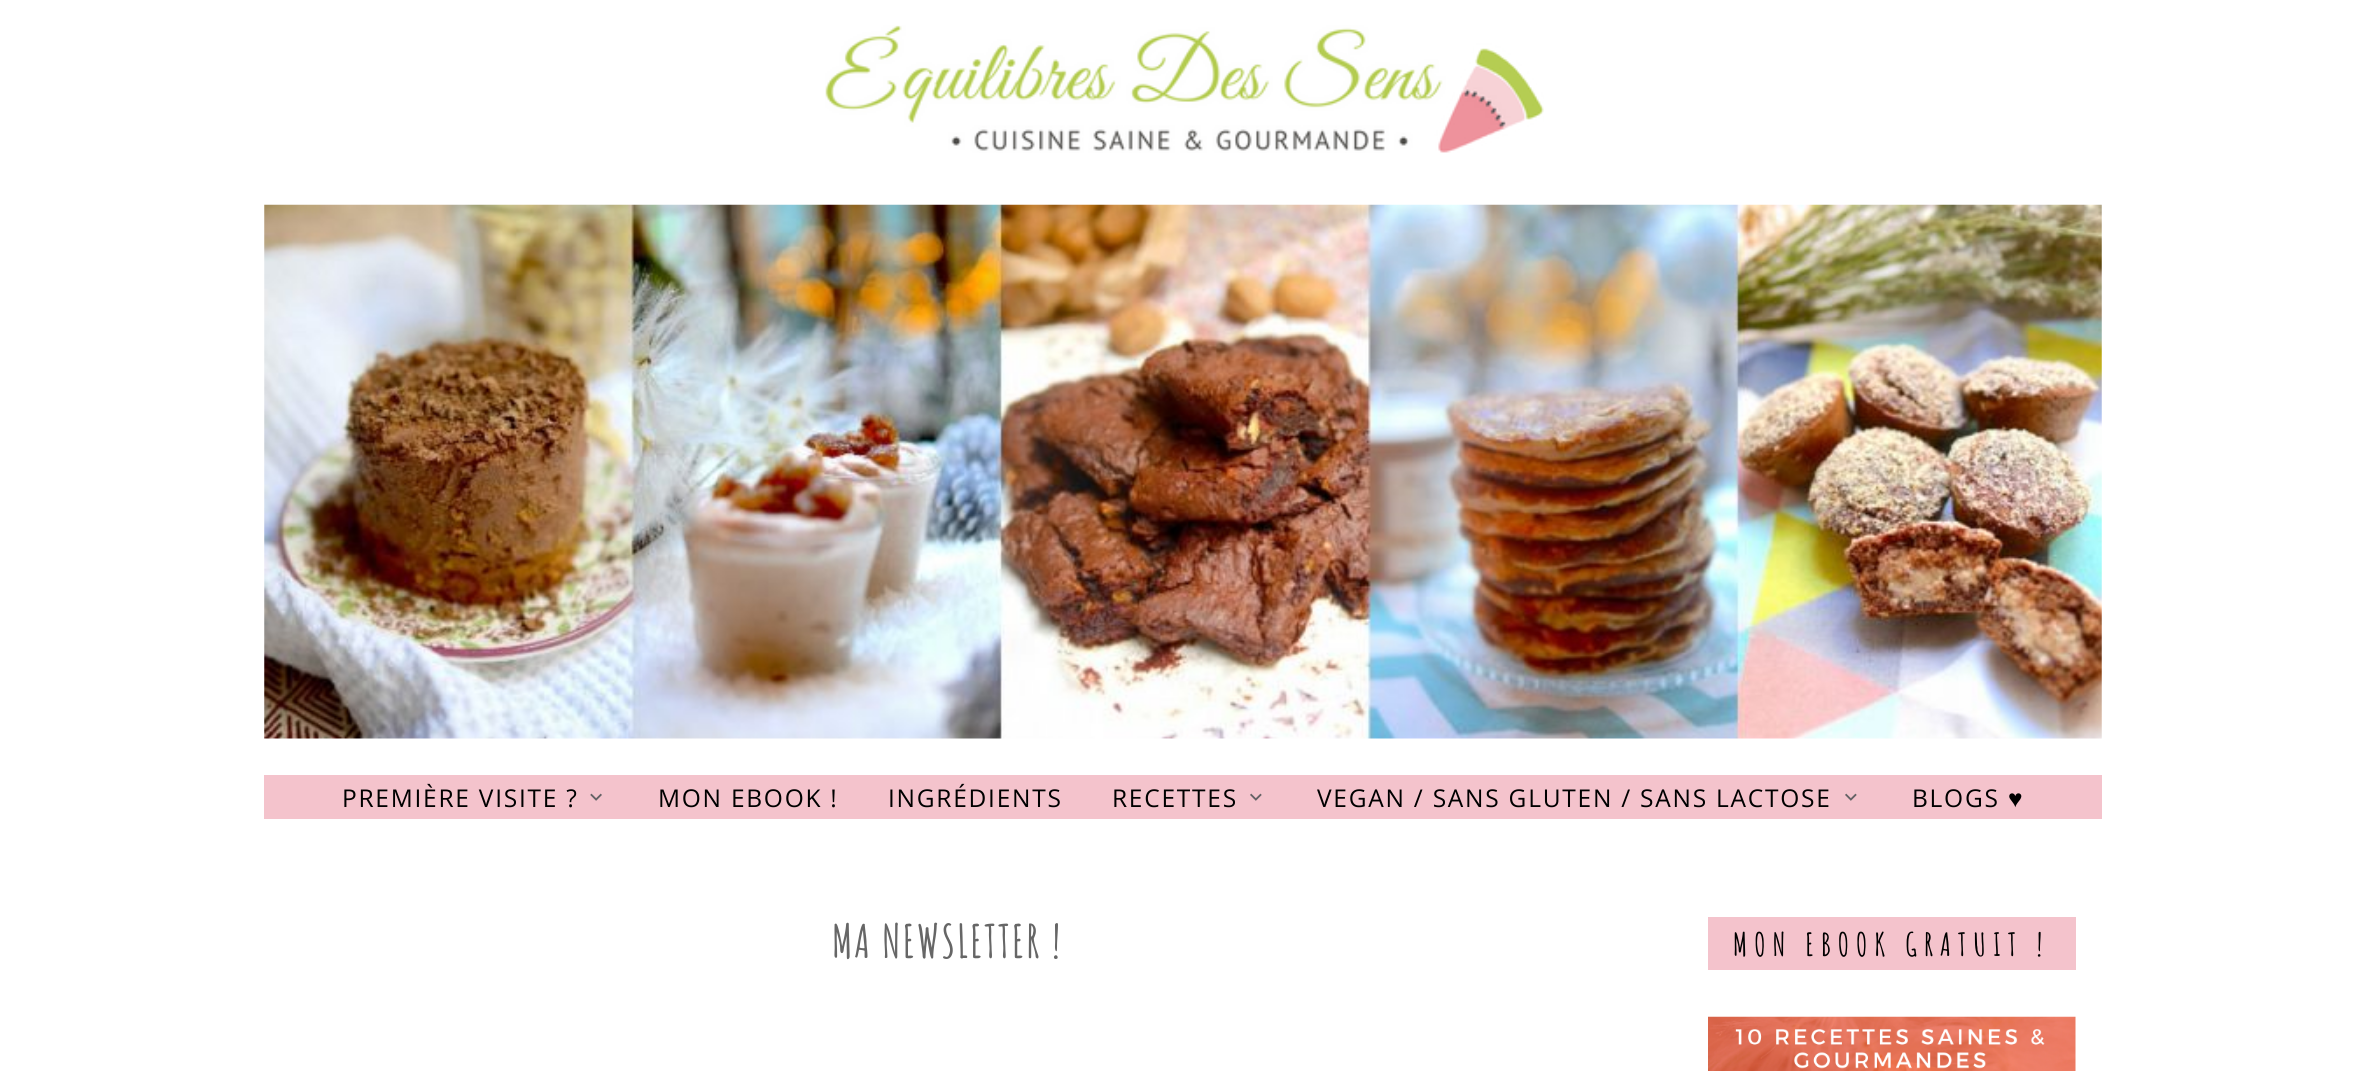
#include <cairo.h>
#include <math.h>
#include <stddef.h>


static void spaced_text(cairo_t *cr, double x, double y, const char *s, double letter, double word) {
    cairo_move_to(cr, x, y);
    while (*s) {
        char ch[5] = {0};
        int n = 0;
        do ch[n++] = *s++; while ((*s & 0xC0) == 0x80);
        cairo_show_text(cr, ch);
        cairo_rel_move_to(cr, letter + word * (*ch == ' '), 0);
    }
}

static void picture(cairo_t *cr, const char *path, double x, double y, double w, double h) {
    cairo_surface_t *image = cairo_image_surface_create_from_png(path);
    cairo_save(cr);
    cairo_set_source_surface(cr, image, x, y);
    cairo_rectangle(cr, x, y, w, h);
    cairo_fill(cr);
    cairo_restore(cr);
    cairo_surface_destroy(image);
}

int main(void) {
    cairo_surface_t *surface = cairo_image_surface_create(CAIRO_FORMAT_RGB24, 2366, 1071);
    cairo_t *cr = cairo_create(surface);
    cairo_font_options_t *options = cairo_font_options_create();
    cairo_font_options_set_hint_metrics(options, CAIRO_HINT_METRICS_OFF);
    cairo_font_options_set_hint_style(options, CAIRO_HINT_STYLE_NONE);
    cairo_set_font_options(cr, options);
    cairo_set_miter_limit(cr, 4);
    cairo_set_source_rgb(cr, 1, 1, 1);
    cairo_paint(cr);
    picture(cr, "img1.png", 825, 25, 719, 128);
    picture(cr, "img2.png", 264, 204, 1838, 535);
    cairo_set_source_rgb(cr, 0.957, 0.765, 0.8);
    cairo_rectangle(cr, 264, 775, 1838, 44);
    cairo_fill(cr);
    cairo_select_font_face(cr, "Open Sans", CAIRO_FONT_SLANT_NORMAL, CAIRO_FONT_WEIGHT_NORMAL);
    cairo_set_font_size(cr, 24.5);
    cairo_set_source_rgb(cr, 0, 0, 0);
    spaced_text(cr, 342, 807, "PREMIÈRE VISITE ?", 1.75, 0);
    picture(cr, "img3.png", 590, 793, 12, 8);
    spaced_text(cr, 658, 807, "MON EBOOK !", 1.75, 0);
    spaced_text(cr, 888, 807, "INGRÉDIENTS", 1.75, 0);
    spaced_text(cr, 1112, 807, "RECETTES", 1.75, 0);
    picture(cr, "img4.png", 1250, 793, 12, 8);
    spaced_text(cr, 1317, 807, "VEGAN / SANS GLUTEN / SANS LACTOSE", 1.75, 0);
    picture(cr, "img4.png", 1845, 793, 12, 8);
    spaced_text(cr, 1912, 807, "BLOGS", 1.75, 0);
    cairo_select_font_face(cr, "Liberation Serif", CAIRO_FONT_SLANT_NORMAL, CAIRO_FONT_WEIGHT_NORMAL);
    spaced_text(cr, 2008, 807, "♥", 1.75, 0);
    cairo_select_font_face(cr, "Amatic SC", CAIRO_FONT_SLANT_NORMAL, CAIRO_FONT_WEIGHT_BOLD);
    cairo_set_font_size(cr, 45.5);
    cairo_set_source_rgb(cr, 0.4, 0.4, 0.4);
    spaced_text(cr, 832, 958, "MA NEWSLETTER !", 1.75, 0);
    cairo_set_source_rgb(cr, 0.957, 0.765, 0.8);
    cairo_rectangle(cr, 1708, 917, 368, 53);
    cairo_fill(cr);
    cairo_set_font_size(cr, 31.5);
    cairo_set_source_rgb(cr, 0, 0, 0);
    spaced_text(cr, 1733, 956, "MON EBOOK GRATUIT !", 7, 0);
    picture(cr, "img5.png", 1708, 1016, 368, 55);
    cairo_surface_write_to_png(surface, "page.png");
    cairo_font_options_destroy(options);
    cairo_destroy(cr);
    cairo_surface_destroy(surface);
    return 0;
}
